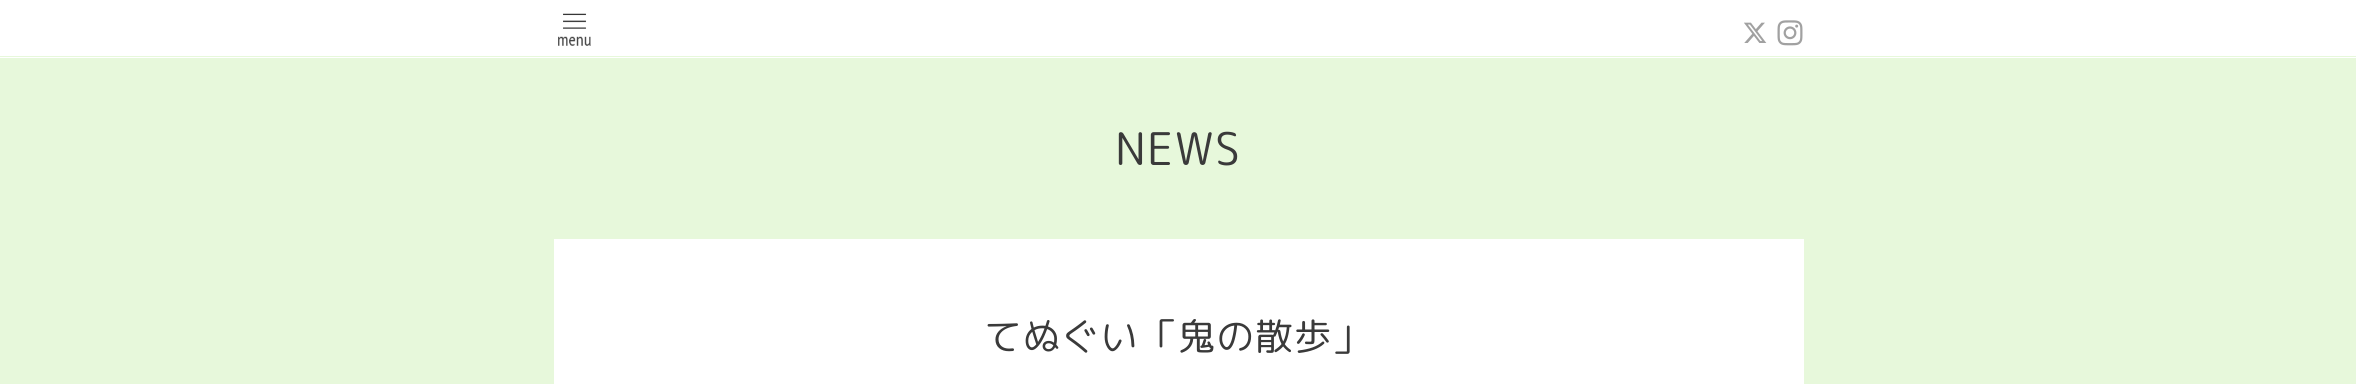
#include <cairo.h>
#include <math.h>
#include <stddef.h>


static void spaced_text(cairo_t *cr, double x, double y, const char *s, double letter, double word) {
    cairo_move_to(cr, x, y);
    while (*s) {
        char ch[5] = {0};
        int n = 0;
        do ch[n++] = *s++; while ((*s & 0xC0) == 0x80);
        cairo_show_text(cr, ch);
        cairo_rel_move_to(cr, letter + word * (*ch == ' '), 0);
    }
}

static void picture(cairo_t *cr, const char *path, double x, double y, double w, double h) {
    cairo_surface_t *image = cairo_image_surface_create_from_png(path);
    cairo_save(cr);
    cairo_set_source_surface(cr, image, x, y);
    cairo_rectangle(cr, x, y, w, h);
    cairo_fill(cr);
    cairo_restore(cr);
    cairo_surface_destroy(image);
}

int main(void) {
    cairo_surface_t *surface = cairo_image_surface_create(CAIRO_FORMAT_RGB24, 2356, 384);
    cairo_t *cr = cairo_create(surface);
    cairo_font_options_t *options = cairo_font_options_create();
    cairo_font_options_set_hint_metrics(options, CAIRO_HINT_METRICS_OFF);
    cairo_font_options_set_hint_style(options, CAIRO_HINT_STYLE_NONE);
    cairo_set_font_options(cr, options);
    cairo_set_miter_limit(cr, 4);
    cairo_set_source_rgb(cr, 0.906, 0.969, 0.859);
    cairo_paint(cr);
    cairo_set_source_rgb(cr, 1, 1, 1);
    cairo_rectangle(cr, 0, 0, 2356, 58);
    cairo_fill(cr);
    cairo_set_source_rgb(cr, 0.906, 0.969, 0.859);
    cairo_rectangle(cr, 0, 56, 2356, 1);
    cairo_fill(cr);
    picture(cr, "img1.png", 558, 13, 33, 33);
    picture(cr, "img2.png", 1744, 22, 23, 21);
    picture(cr, "img3.png", 1777, 20, 26, 26);
    cairo_set_source_rgb(cr, 1, 1, 1);
    cairo_rectangle(cr, 554, 239, 1250, 145);
    cairo_fill(cr);
    cairo_select_font_face(cr, "Rounded Mplus 1c", CAIRO_FONT_SLANT_NORMAL, CAIRO_FONT_WEIGHT_NORMAL);
    cairo_set_font_size(cr, 45);
    cairo_set_source_rgb(cr, 0.227, 0.227, 0.227);
    spaced_text(cr, 1115, 165, "NEWS", 1.25, 0);
    cairo_set_font_size(cr, 37.5);
    spaced_text(cr, 984, 350, "てぬぐい「鬼の散歩」", 1.25, 0);
    cairo_surface_write_to_png(surface, "page.png");
    cairo_font_options_destroy(options);
    cairo_destroy(cr);
    cairo_surface_destroy(surface);
    return 0;
}
